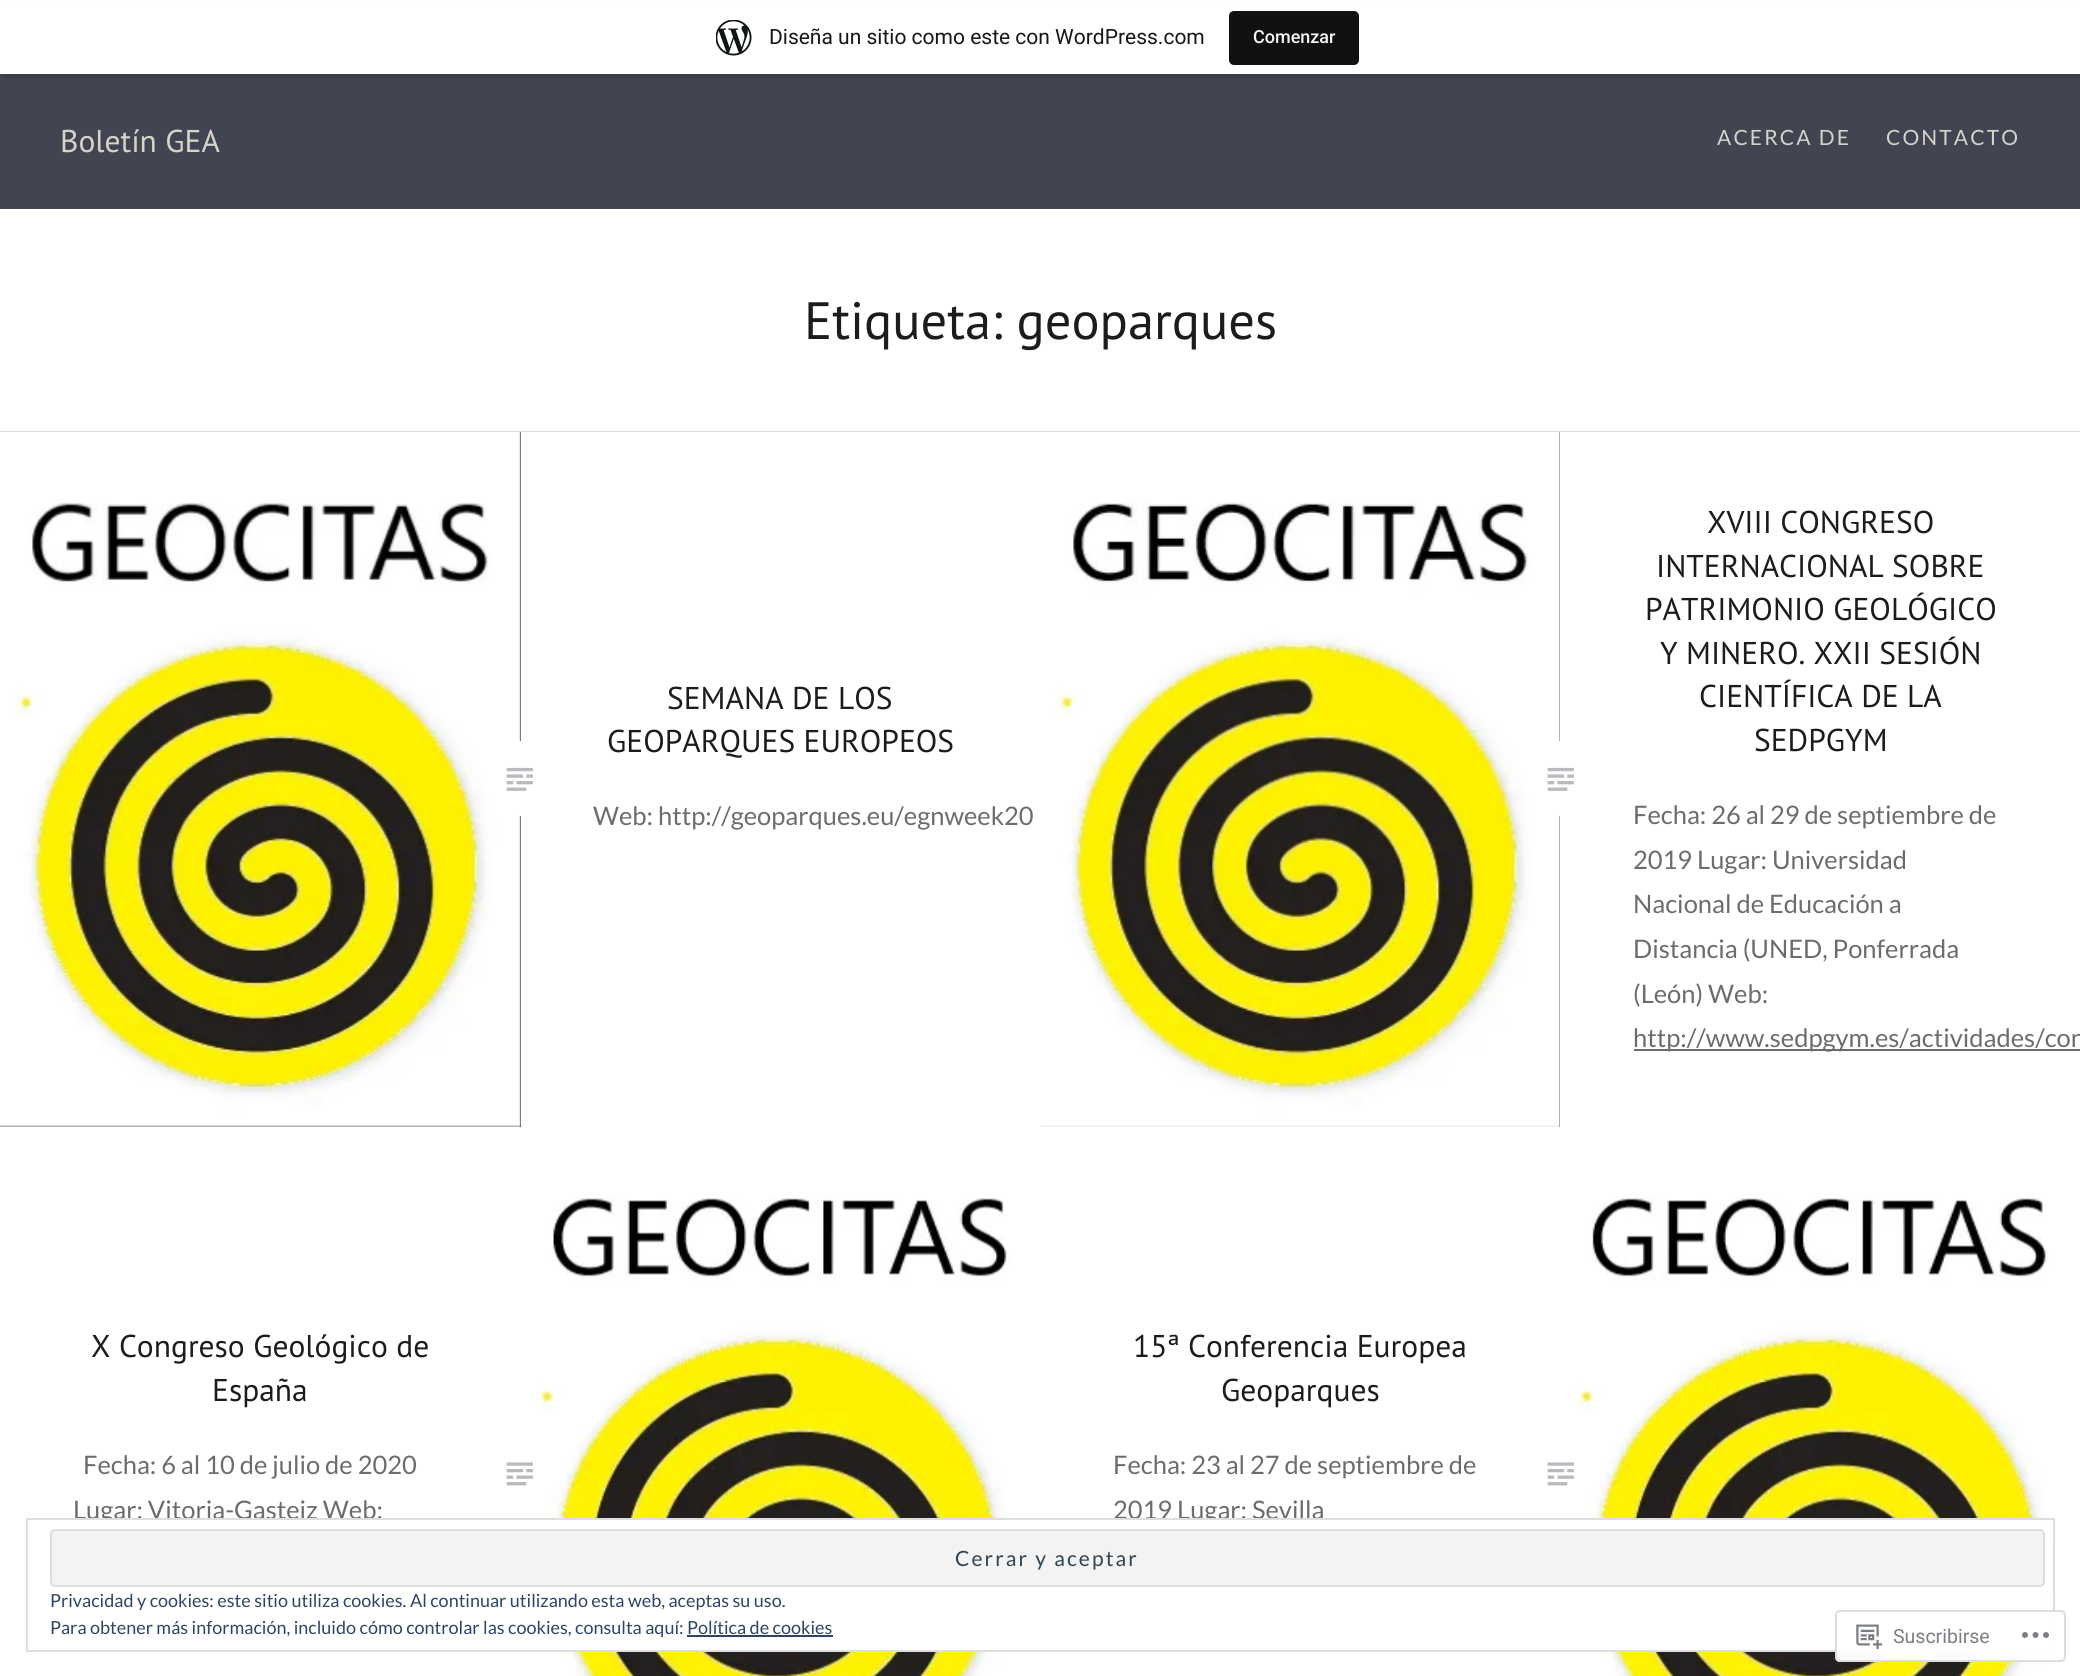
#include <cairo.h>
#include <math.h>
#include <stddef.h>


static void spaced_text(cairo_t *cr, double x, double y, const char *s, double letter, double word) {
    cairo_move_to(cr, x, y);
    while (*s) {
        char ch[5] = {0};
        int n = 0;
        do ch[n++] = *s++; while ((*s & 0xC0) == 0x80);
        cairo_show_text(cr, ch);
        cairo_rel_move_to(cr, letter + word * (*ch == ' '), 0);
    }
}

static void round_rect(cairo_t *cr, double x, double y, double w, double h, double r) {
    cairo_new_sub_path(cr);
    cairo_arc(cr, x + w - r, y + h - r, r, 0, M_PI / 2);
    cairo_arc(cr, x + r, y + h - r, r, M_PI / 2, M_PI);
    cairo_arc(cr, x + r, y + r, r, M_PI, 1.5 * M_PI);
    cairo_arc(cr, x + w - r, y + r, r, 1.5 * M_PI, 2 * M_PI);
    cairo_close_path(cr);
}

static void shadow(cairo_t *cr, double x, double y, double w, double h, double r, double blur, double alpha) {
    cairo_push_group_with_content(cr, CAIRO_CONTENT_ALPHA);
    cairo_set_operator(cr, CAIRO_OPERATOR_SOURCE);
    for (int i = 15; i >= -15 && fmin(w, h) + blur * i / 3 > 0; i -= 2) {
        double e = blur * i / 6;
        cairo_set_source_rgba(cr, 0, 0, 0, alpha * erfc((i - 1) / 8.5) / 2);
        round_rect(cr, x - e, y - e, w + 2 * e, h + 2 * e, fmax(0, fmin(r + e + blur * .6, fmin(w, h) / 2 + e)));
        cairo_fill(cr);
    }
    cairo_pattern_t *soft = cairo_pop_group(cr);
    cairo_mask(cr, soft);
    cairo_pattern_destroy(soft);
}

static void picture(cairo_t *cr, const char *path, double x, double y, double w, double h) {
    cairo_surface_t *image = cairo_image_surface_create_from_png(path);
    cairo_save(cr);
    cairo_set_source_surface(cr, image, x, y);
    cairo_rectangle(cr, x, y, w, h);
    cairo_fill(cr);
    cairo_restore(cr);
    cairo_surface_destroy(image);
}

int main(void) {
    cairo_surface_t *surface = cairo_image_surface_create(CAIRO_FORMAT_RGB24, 2080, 1676);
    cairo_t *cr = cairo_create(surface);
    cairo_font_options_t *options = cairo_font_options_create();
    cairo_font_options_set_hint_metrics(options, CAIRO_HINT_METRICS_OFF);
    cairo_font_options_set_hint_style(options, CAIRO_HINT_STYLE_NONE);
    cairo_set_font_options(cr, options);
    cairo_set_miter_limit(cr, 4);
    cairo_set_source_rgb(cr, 1, 1, 1);
    cairo_paint(cr);
    cairo_set_source_rgb(cr, 0.255, 0.271, 0.318);
    cairo_rectangle(cr, 0, 74, 2080, 135);
    cairo_fill(cr);
    cairo_set_source_rgb(cr, 0, 0, 0);
    shadow(cr, 0, 2, 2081, 73, 0, 1.5, 0.05);
    cairo_set_source_rgb(cr, 0.231, 0.247, 0.286);
    cairo_new_path(cr);
    cairo_move_to(cr, 2, 74);
    cairo_line_to(cr, 2, 78);
    cairo_line_to(cr, 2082, 78);
    cairo_line_to(cr, 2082, 5);
    cairo_line_to(cr, 2080, 5);
    cairo_line_to(cr, 2080, 74);
    cairo_close_path(cr);
    cairo_fill(cr);
    cairo_set_source_rgb(cr, 1, 1, 1);
    cairo_rectangle(cr, 0, 1, 2080, 73);
    cairo_fill(cr);
    picture(cr, "img1.png", 716, 20, 36, 36);
    cairo_select_font_face(cr, "Roboto", CAIRO_FONT_SLANT_NORMAL, CAIRO_FONT_WEIGHT_NORMAL);
    cairo_set_font_size(cr, 21);
    cairo_set_source_rgb(cr, 0.09, 0.09, 0.09);
    cairo_move_to(cr, 769, 44);
    cairo_show_text(cr, "Diseña un sitio como este con WordPress.com");
    cairo_set_source_rgb(cr, 0.067, 0.067, 0.067);
    round_rect(cr, 1229, 11, 130, 54, 5);
    cairo_fill(cr);
    cairo_select_font_face(cr, "Roboto Medium", CAIRO_FONT_SLANT_NORMAL, CAIRO_FONT_WEIGHT_NORMAL);
    cairo_set_font_size(cr, 18);
    cairo_set_source_rgb(cr, 0.965, 0.969, 0.969);
    cairo_move_to(cr, 1253, 43);
    cairo_show_text(cr, "Comenzar");
    cairo_select_font_face(cr, "PT Sans", CAIRO_FONT_SLANT_NORMAL, CAIRO_FONT_WEIGHT_NORMAL);
    cairo_set_font_size(cr, 31.5);
    cairo_set_source_rgb(cr, 0.843, 0.827, 0.792);
    cairo_move_to(cr, 60, 152);
    cairo_show_text(cr, "Boletín GEA");
    cairo_select_font_face(cr, "Lato", CAIRO_FONT_SLANT_NORMAL, CAIRO_FONT_WEIGHT_NORMAL);
    cairo_set_font_size(cr, 21);
    spaced_text(cr, 1717, 145, "ACERCA DE", 2.1, 0);
    spaced_text(cr, 1886, 145, "CONTACTO", 2.1, 0);
    cairo_set_source_rgb(cr, 0.851, 0.875, 0.898);
    cairo_rectangle(cr, 0, 431, 2080, 1);
    cairo_fill(cr);
    cairo_select_font_face(cr, "PT Sans", CAIRO_FONT_SLANT_NORMAL, CAIRO_FONT_WEIGHT_NORMAL);
    cairo_set_font_size(cr, 52.5);
    cairo_set_source_rgb(cr, 0.102, 0.11, 0.118);
    cairo_move_to(cr, 804, 339);
    cairo_show_text(cr, "Etiqueta: geoparques");
    cairo_set_source_rgb(cr, 0.035, 0.047, 0.078);
    cairo_rectangle(cr, 0, 432, 521, 695);
    cairo_fill(cr);
    picture(cr, "img2.png", 0, 432, 521, 695);
    cairo_set_source_rgb(cr, 1, 1, 1);
    cairo_arc(cr, 520.5, 778.5, 37.5, 0, 2 * M_PI);
    cairo_fill(cr);
    cairo_set_font_size(cr, 31.5);
    cairo_set_source_rgb(cr, 0.102, 0.11, 0.118);
    cairo_move_to(cr, 667, 709);
    cairo_show_text(cr, "SEMANA DE LOS");
    cairo_move_to(cr, 607, 752);
    cairo_show_text(cr, "GEOPARQUES EUROPEOS");
    cairo_select_font_face(cr, "Lato", CAIRO_FONT_SLANT_NORMAL, CAIRO_FONT_WEIGHT_NORMAL);
    cairo_set_font_size(cr, 25.5);
    cairo_set_source_rgb(cr, 0.416, 0.424, 0.431);
    cairo_move_to(cr, 593, 825);
    cairo_show_text(cr, "Web: http://geoparques.eu/egnweek20");
    picture(cr, "img3.png", 506, 767, 27, 24);
    cairo_set_source_rgb(cr, 0.035, 0.047, 0.078);
    cairo_rectangle(cr, 1041, 432, 519, 695);
    cairo_fill(cr);
    picture(cr, "img4.png", 1041, 432, 519, 695);
    cairo_set_source_rgb(cr, 1, 1, 1);
    cairo_arc(cr, 1560.5, 778.5, 37.5, 0, 2 * M_PI);
    cairo_fill(cr);
    cairo_select_font_face(cr, "PT Sans", CAIRO_FONT_SLANT_NORMAL, CAIRO_FONT_WEIGHT_NORMAL);
    cairo_set_font_size(cr, 31.5);
    cairo_set_source_rgb(cr, 0.102, 0.11, 0.118);
    cairo_move_to(cr, 1707, 533);
    cairo_show_text(cr, "XVIII CONGRESO");
    cairo_move_to(cr, 1656, 577);
    cairo_show_text(cr, "INTERNACIONAL SOBRE");
    cairo_move_to(cr, 1645, 620);
    cairo_show_text(cr, "PATRIMONIO GEOLÓGICO");
    cairo_move_to(cr, 1660, 664);
    cairo_show_text(cr, "Y MINERO. XXII SESIÓN");
    cairo_move_to(cr, 1699, 707);
    cairo_show_text(cr, "CIENTÍFICA DE LA");
    cairo_move_to(cr, 1754, 751);
    cairo_show_text(cr, "SEDPGYM");
    cairo_select_font_face(cr, "Lato", CAIRO_FONT_SLANT_NORMAL, CAIRO_FONT_WEIGHT_NORMAL);
    cairo_set_font_size(cr, 25.5);
    cairo_set_source_rgb(cr, 0.416, 0.424, 0.431);
    cairo_move_to(cr, 1633, 824);
    cairo_show_text(cr, "Fecha: 26 al 29 de septiembre de");
    cairo_move_to(cr, 1633, 869);
    cairo_show_text(cr, "2019 Lugar: Universidad");
    cairo_move_to(cr, 1633, 913);
    cairo_show_text(cr, "Nacional de Educación a");
    cairo_move_to(cr, 1633, 958);
    cairo_show_text(cr, "Distancia (UNED, Ponferrada");
    cairo_move_to(cr, 1633, 1003);
    cairo_show_text(cr, "(León) Web:");
    cairo_rectangle(cr, 1634, 1049, 446, 2);
    cairo_fill(cr);
    cairo_move_to(cr, 1633, 1047);
    cairo_show_text(cr, "http://www.sedpgym.es/actividades/con");
    picture(cr, "img3.png", 1547, 767, 27, 24);
    cairo_select_font_face(cr, "PT Sans", CAIRO_FONT_SLANT_NORMAL, CAIRO_FONT_WEIGHT_NORMAL);
    cairo_set_font_size(cr, 31.5);
    cairo_set_source_rgb(cr, 0.102, 0.11, 0.118);
    cairo_move_to(cr, 91, 1357);
    cairo_show_text(cr, "X Congreso Geológico de");
    cairo_move_to(cr, 212, 1401);
    cairo_show_text(cr, "España");
    cairo_select_font_face(cr, "Lato", CAIRO_FONT_SLANT_NORMAL, CAIRO_FONT_WEIGHT_NORMAL);
    cairo_set_font_size(cr, 25.5);
    cairo_set_source_rgb(cr, 0.416, 0.424, 0.431);
    cairo_move_to(cr, 83, 1474);
    cairo_show_text(cr, "Fecha: 6 al 10 de julio de 2020");
    cairo_move_to(cr, 73, 1519);
    cairo_show_text(cr, "Lugar: Vitoria-Gasteiz Web:");
    picture(cr, "img6.png", 521, 1127, 520, 549);
    picture(cr, "img5.png", 506, 1462, 27, 24);
    cairo_select_font_face(cr, "PT Sans", CAIRO_FONT_SLANT_NORMAL, CAIRO_FONT_WEIGHT_NORMAL);
    cairo_set_font_size(cr, 31.5);
    cairo_set_source_rgb(cr, 0.102, 0.11, 0.118);
    cairo_move_to(cr, 1133, 1357);
    cairo_show_text(cr, "15ª Conferencia Europea");
    cairo_move_to(cr, 1221, 1401);
    cairo_show_text(cr, "Geoparques");
    cairo_select_font_face(cr, "Lato", CAIRO_FONT_SLANT_NORMAL, CAIRO_FONT_WEIGHT_NORMAL);
    cairo_set_font_size(cr, 25.5);
    cairo_set_source_rgb(cr, 0.416, 0.424, 0.431);
    cairo_move_to(cr, 1113, 1474);
    cairo_show_text(cr, "Fecha: 23 al 27 de septiembre de");
    cairo_move_to(cr, 1113, 1519);
    cairo_show_text(cr, "2019 Lugar: Sevilla");
    picture(cr, "img7.png", 1560, 1127, 520, 549);
    picture(cr, "img5.png", 1547, 1462, 27, 24);
    cairo_set_source_rgb(cr, 1, 1, 1);
    cairo_rectangle(cr, 100, 1520, 1946, 130);
    cairo_fill(cr);
    cairo_rectangle(cr, 27, 1519, 2027, 132);
    cairo_set_source_rgb(cr, 0.871, 0.871, 0.871);
    cairo_stroke(cr);
    cairo_set_source_rgb(cr, 0.953, 0.953, 0.953);
    round_rect(cr, 51, 1530, 1993, 56, 4);
    cairo_fill_preserve(cr);
    cairo_set_source_rgb(cr, 0.871, 0.871, 0.871);
    cairo_stroke(cr);
    cairo_set_font_size(cr, 21);
    cairo_set_source_rgb(cr, 0.18, 0.267, 0.325);
    spaced_text(cr, 955, 1566, "Cerrar y aceptar", 2.1, 0);
    cairo_set_font_size(cr, 18);
    cairo_set_source_rgb(cr, 0.18, 0.267, 0.404);
    cairo_move_to(cr, 50, 1607);
    cairo_show_text(cr, "Privacidad y cookies: este sitio utiliza cookies. Al continuar utilizando esta web, aceptas su uso.");
    cairo_move_to(cr, 50, 1634);
    cairo_show_text(cr, "Para obtener más información, incluido cómo controlar las cookies, consulta aquí: Política de cookies");
    cairo_rectangle(cr, 687, 1635, 146, 2);
    cairo_fill(cr);
    cairo_set_source_rgba(cr, 1, 1, 1, 0.98);
    round_rect(cr, 1835, 1610, 231, 52, 5);
    cairo_fill(cr);
    round_rect(cr, 1836, 1611, 229, 50, 4);
    cairo_set_source_rgba(cr, 0.863, 0.863, 0.871, 0.98);
    cairo_stroke(cr);
    picture(cr, "img8.png", 1856, 1624, 27, 25);
    cairo_select_font_face(cr, "Roboto", CAIRO_FONT_SLANT_NORMAL, CAIRO_FONT_WEIGHT_NORMAL);
    cairo_set_font_size(cr, 19.5);
    cairo_set_source_rgb(cr, 0.482, 0.498, 0.522);
    cairo_move_to(cr, 1893, 1643);
    cairo_show_text(cr, "Suscribirse");
    picture(cr, "img9.png", 2022, 1632, 27, 6);
    cairo_surface_write_to_png(surface, "page.png");
    cairo_font_options_destroy(options);
    cairo_destroy(cr);
    cairo_surface_destroy(surface);
    return 0;
}
